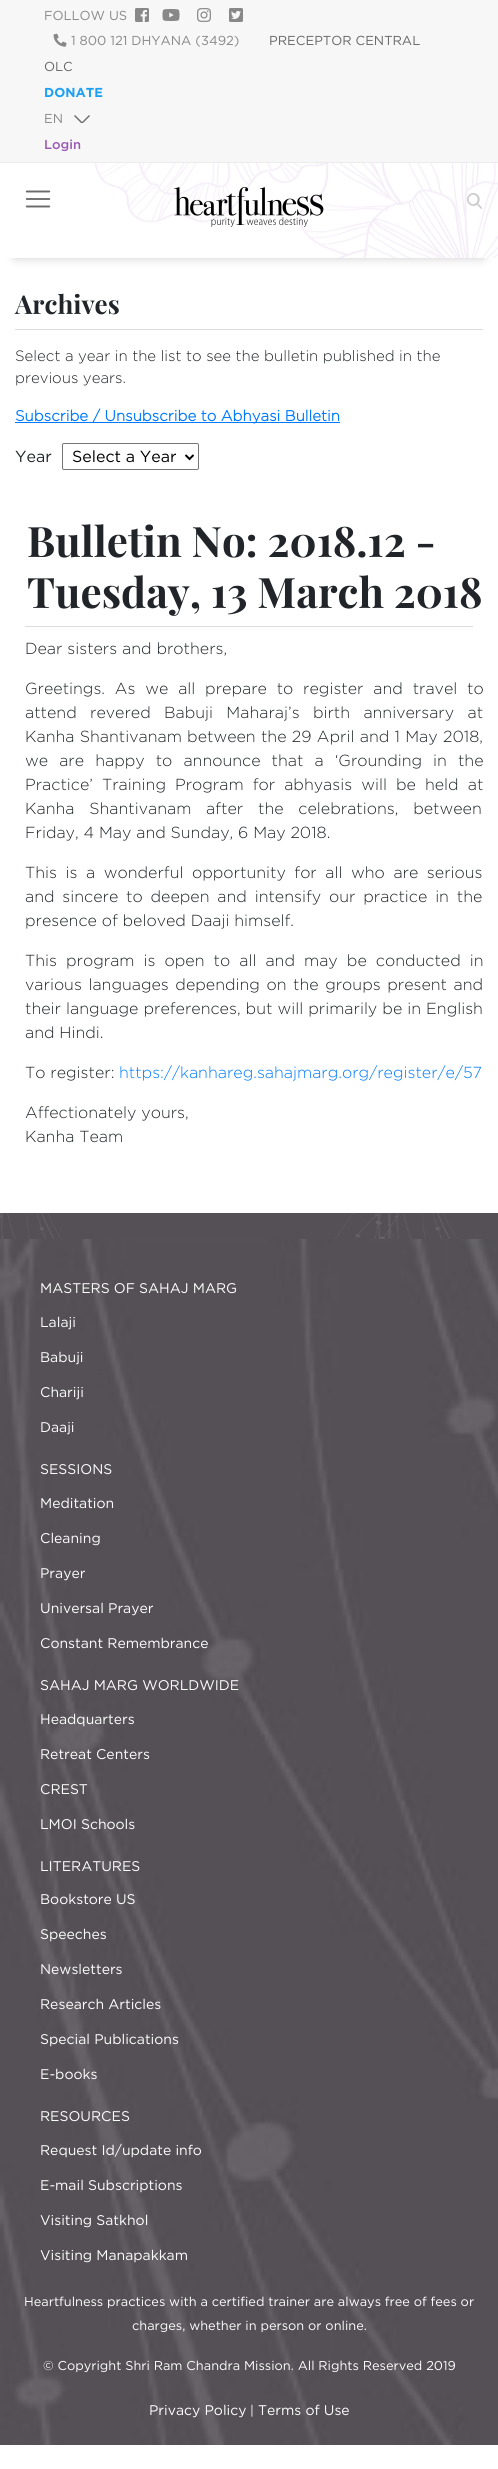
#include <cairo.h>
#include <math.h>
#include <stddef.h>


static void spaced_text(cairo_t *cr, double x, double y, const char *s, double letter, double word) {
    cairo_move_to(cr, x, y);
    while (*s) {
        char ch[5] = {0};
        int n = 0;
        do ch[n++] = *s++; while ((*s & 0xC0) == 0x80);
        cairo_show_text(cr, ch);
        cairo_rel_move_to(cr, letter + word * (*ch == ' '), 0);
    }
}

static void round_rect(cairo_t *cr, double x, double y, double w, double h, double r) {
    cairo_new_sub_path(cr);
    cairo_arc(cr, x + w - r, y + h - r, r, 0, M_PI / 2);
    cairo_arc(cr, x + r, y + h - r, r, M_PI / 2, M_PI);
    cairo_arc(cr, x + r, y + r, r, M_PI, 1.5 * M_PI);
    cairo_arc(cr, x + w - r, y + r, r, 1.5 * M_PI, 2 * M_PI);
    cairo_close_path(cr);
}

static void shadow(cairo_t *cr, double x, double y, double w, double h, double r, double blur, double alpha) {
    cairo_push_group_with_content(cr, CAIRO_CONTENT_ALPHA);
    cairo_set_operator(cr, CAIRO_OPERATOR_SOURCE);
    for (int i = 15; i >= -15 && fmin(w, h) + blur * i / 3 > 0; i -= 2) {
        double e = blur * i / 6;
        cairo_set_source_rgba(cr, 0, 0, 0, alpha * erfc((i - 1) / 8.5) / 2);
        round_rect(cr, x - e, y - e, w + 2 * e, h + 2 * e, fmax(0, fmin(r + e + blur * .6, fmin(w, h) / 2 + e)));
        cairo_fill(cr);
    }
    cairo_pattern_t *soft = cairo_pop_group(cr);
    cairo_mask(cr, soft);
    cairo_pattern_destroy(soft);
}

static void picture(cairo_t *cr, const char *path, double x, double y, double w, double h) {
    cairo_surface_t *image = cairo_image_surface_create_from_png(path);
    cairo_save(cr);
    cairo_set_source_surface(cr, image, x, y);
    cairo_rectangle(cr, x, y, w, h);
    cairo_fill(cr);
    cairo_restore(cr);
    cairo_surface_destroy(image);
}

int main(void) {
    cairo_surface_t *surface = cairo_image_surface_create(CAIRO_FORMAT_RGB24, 498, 2469);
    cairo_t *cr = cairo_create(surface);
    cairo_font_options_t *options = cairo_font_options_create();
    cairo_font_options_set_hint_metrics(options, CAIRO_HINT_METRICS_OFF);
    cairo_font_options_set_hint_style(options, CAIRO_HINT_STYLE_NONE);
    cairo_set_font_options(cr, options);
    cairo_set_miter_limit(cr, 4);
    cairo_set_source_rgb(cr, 1, 1, 1);
    cairo_paint(cr);
    cairo_set_source_rgb(cr, 0.965, 0.965, 0.965);
    cairo_rectangle(cr, 0, 0, 498, 162);
    cairo_fill(cr);
    cairo_set_source_rgb(cr, 0.922, 0.922, 0.922);
    cairo_rectangle(cr, 0, 162, 498, 1);
    cairo_fill(cr);
    cairo_select_font_face(cr, "Gotham", CAIRO_FONT_SLANT_NORMAL, CAIRO_FONT_WEIGHT_NORMAL);
    cairo_set_font_size(cr, 13);
    cairo_set_source_rgb(cr, 0.533, 0.533, 0.533);
    cairo_move_to(cr, 44, 20);
    cairo_show_text(cr, "FOLLOW US");
    picture(cr, "img1.png", 135, 8, 14, 14);
    picture(cr, "img2.png", 162, 9, 18, 12);
    picture(cr, "img3.png", 197, 8, 14, 14);
    picture(cr, "img4.png", 229, 8, 14, 14);
    picture(cr, "img5.png", 53, 33, 14, 14);
    cairo_move_to(cr, 71, 45);
    cairo_show_text(cr, "1 800 121 DHYANA (3492)");
    cairo_set_source_rgb(cr, 0.4, 0.4, 0.4);
    cairo_move_to(cr, 269, 45);
    cairo_show_text(cr, "PRECEPTOR CENTRAL");
    cairo_move_to(cr, 44, 71);
    cairo_show_text(cr, "OLC");
    cairo_select_font_face(cr, "Gotham", CAIRO_FONT_SLANT_NORMAL, CAIRO_FONT_WEIGHT_BOLD);
    cairo_set_source_rgb(cr, 0.11, 0.627, 0.949);
    cairo_move_to(cr, 44, 97);
    cairo_show_text(cr, "DONATE");
    picture(cr, "img6.png", 74, 115, 16, 8);
    cairo_select_font_face(cr, "Gotham", CAIRO_FONT_SLANT_NORMAL, CAIRO_FONT_WEIGHT_NORMAL);
    cairo_set_source_rgb(cr, 0.533, 0.533, 0.533);
    cairo_move_to(cr, 44, 123);
    cairo_show_text(cr, "EN");
    cairo_select_font_face(cr, "Gotham Medium", CAIRO_FONT_SLANT_NORMAL, CAIRO_FONT_WEIGHT_NORMAL);
    cairo_set_source_rgb(cr, 0.604, 0.349, 0.71);
    cairo_move_to(cr, 44, 149);
    cairo_show_text(cr, "Login");
    cairo_save(cr);
    cairo_rectangle(cr, 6, 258, 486, 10);
    cairo_clip(cr);
    cairo_set_source_rgb(cr, 0.8, 0.8, 0.8);
    shadow(cr, 15, 193, 468, 65, 0, 5, 1);
    cairo_restore(cr);
    picture(cr, "img7.png", 299, 163, 199, 95);
    picture(cr, "img8.png", 94, 163, 233, 60);
    picture(cr, "img9.png", 25, 190, 26, 18);
    picture(cr, "img10.png", 174, 187, 150, 40);
    picture(cr, "img11.png", 467, 193, 15, 16);
    cairo_set_source_rgb(cr, 0.867, 0.867, 0.867);
    cairo_rectangle(cr, 15, 329, 468, 1);
    cairo_fill(cr);
    cairo_select_font_face(cr, "Playfair Display", CAIRO_FONT_SLANT_NORMAL, CAIRO_FONT_WEIGHT_BOLD);
    cairo_set_font_size(cr, 26);
    cairo_set_source_rgb(cr, 0.129, 0.145, 0.161);
    cairo_move_to(cr, 15, 314);
    cairo_show_text(cr, "Archives");
    cairo_select_font_face(cr, "Gotham Light", CAIRO_FONT_SLANT_NORMAL, CAIRO_FONT_WEIGHT_NORMAL);
    cairo_set_font_size(cr, 15);
    cairo_move_to(cr, 15, 361);
    cairo_show_text(cr, "Select a year in the list to see the bulletin published in the");
    cairo_move_to(cr, 15, 383);
    cairo_show_text(cr, "previous years.");
    cairo_set_source_rgb(cr, 0, 0.482, 1);
    cairo_rectangle(cr, 15, 422, 325, 1);
    cairo_fill(cr);
    cairo_select_font_face(cr, "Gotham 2", CAIRO_FONT_SLANT_NORMAL, CAIRO_FONT_WEIGHT_BOLD);
    cairo_move_to(cr, 15, 421);
    cairo_show_text(cr, "Subscribe / Unsubscribe to Abhyasi Bulletin");
    cairo_select_font_face(cr, "Gotham", CAIRO_FONT_SLANT_NORMAL, CAIRO_FONT_WEIGHT_NORMAL);
    cairo_set_font_size(cr, 16);
    cairo_set_source_rgb(cr, 0.129, 0.145, 0.161);
    cairo_move_to(cr, 15, 462);
    cairo_show_text(cr, "Year");
    round_rect(cr, 62.5, 443.5, 136, 26, 1.5);
    cairo_set_source_rgb(cr, 0.463, 0.463, 0.463);
    cairo_set_line_width(cr, 1);
    cairo_stroke(cr);
    cairo_new_path(cr);
    cairo_move_to(cr, 185.5, 455);
    cairo_line_to(cr, 189.5, 459);
    cairo_line_to(cr, 193.5, 455);
    cairo_set_source_rgb(cr, 0, 0, 0);
    cairo_set_line_width(cr, 2);
    cairo_stroke(cr);
    cairo_move_to(cr, 72, 462);
    cairo_show_text(cr, "Select a Year");
    cairo_select_font_face(cr, "Playfair Display", CAIRO_FONT_SLANT_NORMAL, CAIRO_FONT_WEIGHT_BOLD);
    cairo_set_font_size(cr, 42);
    cairo_set_source_rgb(cr, 0.129, 0.145, 0.161);
    cairo_move_to(cr, 27, 557);
    cairo_show_text(cr, "Bulletin No: 2018.12 -");
    cairo_move_to(cr, 27, 608);
    cairo_show_text(cr, "Tuesday, 13 March 2018");
    cairo_set_source_rgb(cr, 0.867, 0.867, 0.867);
    cairo_rectangle(cr, 25, 626, 448, 1);
    cairo_fill(cr);
    cairo_select_font_face(cr, "Gotham Light", CAIRO_FONT_SLANT_NORMAL, CAIRO_FONT_WEIGHT_NORMAL);
    cairo_set_font_size(cr, 16);
    cairo_set_source_rgb(cr, 0.129, 0.145, 0.161);
    cairo_move_to(cr, 25, 654);
    cairo_show_text(cr, "Dear sisters and brothers,");
    spaced_text(cr, 25, 694, "Greetings. As we all prepare to register and travel to", 0, 5);
    spaced_text(cr, 25, 718, "attend revered Babuji Maharaj’s birth anniversary at", 0, 8.5);
    spaced_text(cr, 25, 742, "Kanha Shantivanam between the 29 April and 1 May 2018,", 0, 0.5);
    spaced_text(cr, 25, 766, "we are happy to announce that a ‘Grounding in the", 0, 6.25);
    spaced_text(cr, 25, 790, "Practice’ Training Program for abhyasis will be held at", 0, 4.25);
    spaced_text(cr, 25, 814, "Kanha Shantivanam after the celebrations, between", 0, 10);
    cairo_move_to(cr, 25, 838);
    cairo_show_text(cr, "Friday, 4 May and Sunday, 6 May 2018.");
    spaced_text(cr, 25, 878, "This is a wonderful opportunity for all who are serious", 0, 3.75);
    spaced_text(cr, 25, 902, "and sincere to deepen and intensify our practice in the", 0, 3);
    cairo_move_to(cr, 25, 926);
    cairo_show_text(cr, "presence of beloved Daaji himself.");
    spaced_text(cr, 25, 966, "This program is open to all and may be conducted in", 0, 4.25);
    spaced_text(cr, 25, 990, "various languages depending on the groups present and", 0, 1.75);
    spaced_text(cr, 25, 1014, "their language preferences, but will primarily be in English", 0, 0.25);
    cairo_move_to(cr, 25, 1038);
    cairo_show_text(cr, "and Hindi.");
    cairo_move_to(cr, 25, 1078);
    cairo_show_text(cr, "To register:");
    cairo_set_source_rgb(cr, 0, 0.482, 1);
    cairo_move_to(cr, 119, 1078);
    cairo_show_text(cr, "https://kanhareg.sahajmarg.org/register/e/57");
    cairo_set_source_rgb(cr, 0.129, 0.145, 0.161);
    cairo_move_to(cr, 25, 1118);
    cairo_show_text(cr, "Affectionately yours,");
    cairo_move_to(cr, 25, 1142);
    cairo_show_text(cr, "Kanha Team");
    picture(cr, "img12.png", 0, 1213, 498, 26);
    picture(cr, "img13.png", 0, 1239, 498, 1206);
    cairo_select_font_face(cr, "Gotham", CAIRO_FONT_SLANT_NORMAL, CAIRO_FONT_WEIGHT_NORMAL);
    cairo_set_font_size(cr, 14);
    cairo_set_source_rgb(cr, 1, 1, 1);
    cairo_move_to(cr, 40, 1293);
    cairo_show_text(cr, "MASTERS OF SAHAJ MARG");
    cairo_move_to(cr, 40, 1327);
    cairo_show_text(cr, "Lalaji");
    cairo_move_to(cr, 40, 1362);
    cairo_show_text(cr, "Babuji");
    cairo_move_to(cr, 40, 1397);
    cairo_show_text(cr, "Chariji");
    cairo_move_to(cr, 40, 1432);
    cairo_show_text(cr, "Daaji");
    cairo_move_to(cr, 40, 1474);
    cairo_show_text(cr, "SESSIONS");
    cairo_move_to(cr, 40, 1508);
    cairo_show_text(cr, "Meditation");
    cairo_move_to(cr, 40, 1543);
    cairo_show_text(cr, "Cleaning");
    cairo_move_to(cr, 40, 1578);
    cairo_show_text(cr, "Prayer");
    cairo_move_to(cr, 40, 1613);
    cairo_show_text(cr, "Universal Prayer");
    cairo_move_to(cr, 40, 1648);
    cairo_show_text(cr, "Constant Remembrance");
    cairo_move_to(cr, 40, 1690);
    cairo_show_text(cr, "SAHAJ MARG WORLDWIDE");
    cairo_move_to(cr, 40, 1724);
    cairo_show_text(cr, "Headquarters");
    cairo_move_to(cr, 40, 1759);
    cairo_show_text(cr, "Retreat Centers");
    cairo_move_to(cr, 40, 1794);
    cairo_show_text(cr, "CREST");
    cairo_move_to(cr, 40, 1829);
    cairo_show_text(cr, "LMOI Schools");
    cairo_move_to(cr, 40, 1871);
    cairo_show_text(cr, "LITERATURES");
    cairo_move_to(cr, 40, 1904);
    cairo_show_text(cr, "Bookstore US");
    cairo_move_to(cr, 40, 1939);
    cairo_show_text(cr, "Speeches");
    cairo_move_to(cr, 40, 1974);
    cairo_show_text(cr, "Newsletters");
    cairo_move_to(cr, 40, 2009);
    cairo_show_text(cr, "Research Articles");
    cairo_move_to(cr, 40, 2044);
    cairo_show_text(cr, "Special Publications");
    cairo_move_to(cr, 40, 2079);
    cairo_show_text(cr, "E-books");
    cairo_move_to(cr, 40, 2121);
    cairo_show_text(cr, "RESOURCES");
    cairo_move_to(cr, 40, 2155);
    cairo_show_text(cr, "Request Id/update info");
    cairo_move_to(cr, 40, 2190);
    cairo_show_text(cr, "E-mail Subscriptions");
    cairo_move_to(cr, 40, 2225);
    cairo_show_text(cr, "Visiting Satkhol");
    cairo_move_to(cr, 40, 2260);
    cairo_show_text(cr, "Visiting Manapakkam");
    cairo_set_font_size(cr, 12.8);
    cairo_move_to(cr, 24, 2306);
    cairo_show_text(cr, "Heartfulness practices with a certified trainer are always free of fees or");
    cairo_move_to(cr, 132, 2330);
    cairo_show_text(cr, "charges, whether in person or online.");
    cairo_move_to(cr, 43, 2370);
    cairo_show_text(cr, "© Copyright Shri Ram Chandra Mission. All Rights Reserved 2019");
    cairo_set_font_size(cr, 14);
    cairo_move_to(cr, 149, 2415);
    cairo_show_text(cr, "Privacy Policy");
    cairo_set_font_size(cr, 12.8);
    cairo_move_to(cr, 250, 2415);
    cairo_show_text(cr, "|");
    cairo_set_font_size(cr, 14);
    cairo_move_to(cr, 258, 2415);
    cairo_show_text(cr, "Terms of Use");
    cairo_surface_write_to_png(surface, "page.png");
    cairo_font_options_destroy(options);
    cairo_destroy(cr);
    cairo_surface_destroy(surface);
    return 0;
}
